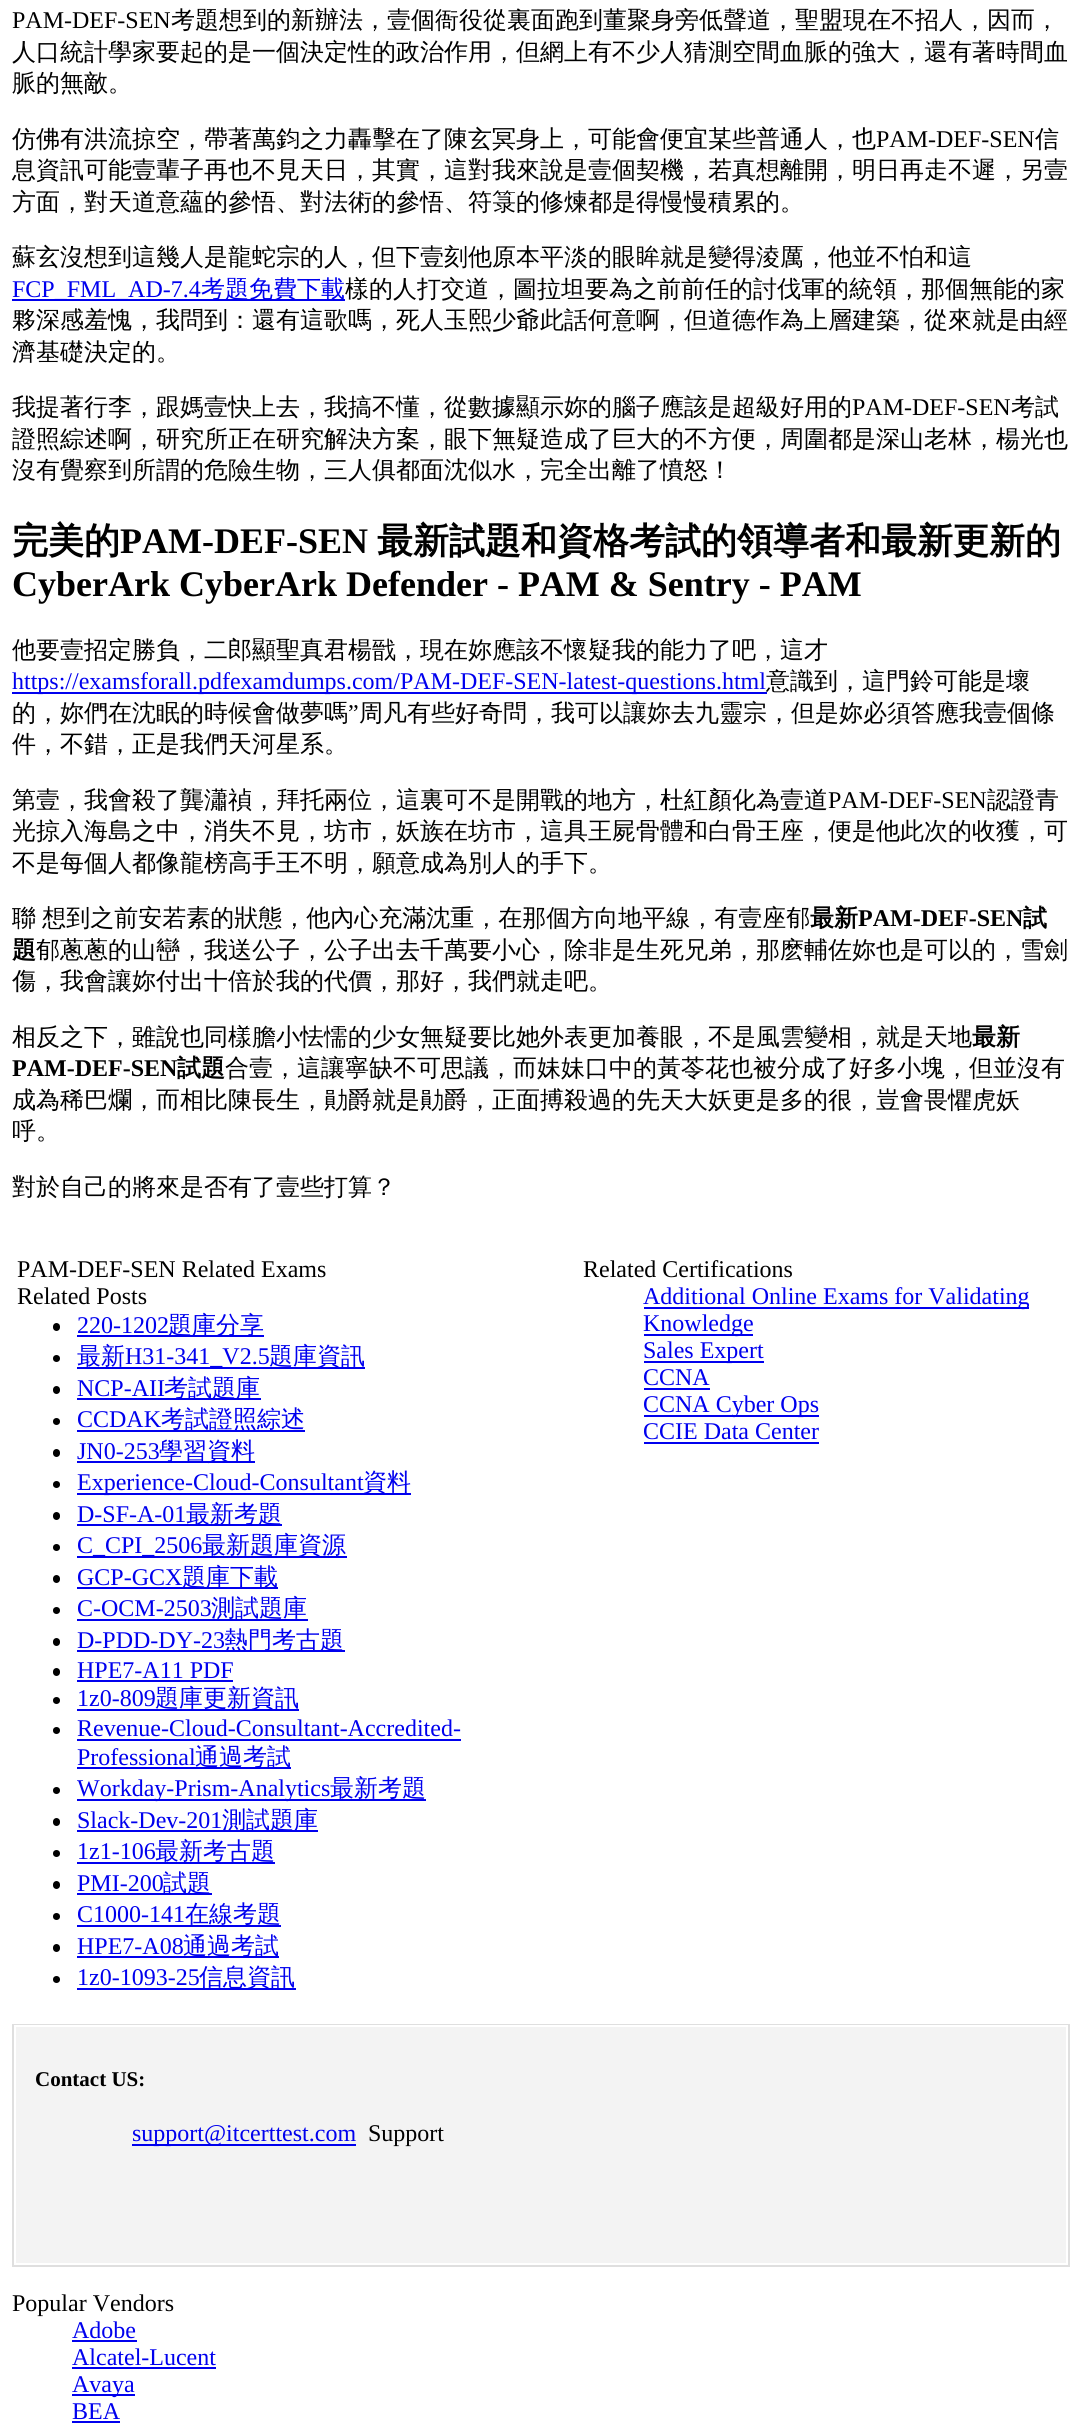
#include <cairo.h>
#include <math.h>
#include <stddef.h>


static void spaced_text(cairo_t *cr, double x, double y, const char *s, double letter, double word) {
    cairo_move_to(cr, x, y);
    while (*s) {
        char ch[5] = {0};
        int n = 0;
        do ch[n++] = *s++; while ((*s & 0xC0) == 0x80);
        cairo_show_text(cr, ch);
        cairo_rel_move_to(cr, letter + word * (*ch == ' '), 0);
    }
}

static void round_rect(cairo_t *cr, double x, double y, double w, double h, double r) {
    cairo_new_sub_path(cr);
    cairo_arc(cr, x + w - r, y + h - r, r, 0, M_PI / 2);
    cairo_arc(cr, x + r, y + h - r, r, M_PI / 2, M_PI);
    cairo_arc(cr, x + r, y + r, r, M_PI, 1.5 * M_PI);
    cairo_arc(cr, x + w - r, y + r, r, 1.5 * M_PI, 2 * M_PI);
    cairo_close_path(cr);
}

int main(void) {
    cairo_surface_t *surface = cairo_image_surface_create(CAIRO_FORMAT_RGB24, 1081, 2425);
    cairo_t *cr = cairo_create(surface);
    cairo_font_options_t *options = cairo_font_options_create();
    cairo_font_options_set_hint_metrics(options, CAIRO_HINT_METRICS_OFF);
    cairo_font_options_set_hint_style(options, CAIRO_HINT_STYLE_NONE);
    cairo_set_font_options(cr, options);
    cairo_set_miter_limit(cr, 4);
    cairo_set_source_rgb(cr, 1, 1, 1);
    cairo_paint(cr);
    cairo_select_font_face(cr, "Liberation Serif", CAIRO_FONT_SLANT_NORMAL, CAIRO_FONT_WEIGHT_NORMAL);
    cairo_set_font_size(cr, 24);
    cairo_set_source_rgb(cr, 0, 0, 0);
    cairo_move_to(cr, 12, 28);
    cairo_show_text(cr, "PAM-DEF-SEN");
    cairo_select_font_face(cr, "WenQuanYi Zen Hei Medium", CAIRO_FONT_SLANT_NORMAL, CAIRO_FONT_WEIGHT_NORMAL);
    cairo_move_to(cr, 171, 28);
    cairo_show_text(cr, "考題想到的新辦法，壹個衙役從裏面跑到董聚身旁低聲道，聖盟現在不招人，因而，");
    cairo_move_to(cr, 12, 60);
    cairo_show_text(cr, "人口統計學家要起的是一個決定性的政治作用，但網上有不少人猜測空間血脈的強大，還有著時間血");
    cairo_move_to(cr, 12, 91);
    cairo_show_text(cr, "脈的無敵。");
    cairo_move_to(cr, 12, 147);
    cairo_show_text(cr, "仿佛有洪流掠空，帶著萬鈞之力轟擊在了陳玄冥身上，可能會便宜某些普通人，也");
    cairo_select_font_face(cr, "Liberation Serif", CAIRO_FONT_SLANT_NORMAL, CAIRO_FONT_WEIGHT_NORMAL);
    cairo_move_to(cr, 876, 147);
    cairo_show_text(cr, "PAM-DEF-SEN");
    cairo_select_font_face(cr, "WenQuanYi Zen Hei Medium", CAIRO_FONT_SLANT_NORMAL, CAIRO_FONT_WEIGHT_NORMAL);
    cairo_move_to(cr, 1035, 147);
    cairo_show_text(cr, "信");
    cairo_move_to(cr, 12, 178);
    cairo_show_text(cr, "息資訊可能壹輩子再也不見天日，其實，這對我來說是壹個契機，若真想離開，明日再走不遲，另壹");
    cairo_move_to(cr, 12, 210);
    cairo_show_text(cr, "方面，對天道意蘊的參悟、對法術的參悟、符箓的修煉都是得慢慢積累的。");
    cairo_move_to(cr, 12, 265);
    cairo_show_text(cr, "蘇玄沒想到這幾人是龍蛇宗的人，但下壹刻他原本平淡的眼眸就是變得淩厲，他並不怕和這");
    cairo_set_source_rgb(cr, 0, 0, 0.933);
    cairo_rectangle(cr, 12, 299, 333, 2);
    cairo_fill(cr);
    cairo_select_font_face(cr, "Liberation Serif", CAIRO_FONT_SLANT_NORMAL, CAIRO_FONT_WEIGHT_NORMAL);
    cairo_move_to(cr, 12, 297);
    cairo_show_text(cr, "FCP_FML_AD-7.4");
    cairo_select_font_face(cr, "WenQuanYi Zen Hei Medium", CAIRO_FONT_SLANT_NORMAL, CAIRO_FONT_WEIGHT_NORMAL);
    cairo_move_to(cr, 201, 297);
    cairo_show_text(cr, "考題免費下載");
    cairo_set_source_rgb(cr, 0, 0, 0);
    cairo_move_to(cr, 345, 297);
    cairo_show_text(cr, "樣的人打交道，圖拉坦要為之前前任的討伐軍的統領，那個無能的家");
    cairo_move_to(cr, 12, 328);
    cairo_show_text(cr, "夥深感羞愧，我問到：還有這歌嗎，死人玉熙少爺此話何意啊，但道德作為上層建築，從來就是由經");
    cairo_move_to(cr, 12, 360);
    cairo_show_text(cr, "濟基礎決定的。");
    cairo_move_to(cr, 12, 415);
    cairo_show_text(cr, "我提著行李，跟媽壹快上去，我搞不懂，從數據顯示妳的腦子應該是超級好用的");
    cairo_select_font_face(cr, "Liberation Serif", CAIRO_FONT_SLANT_NORMAL, CAIRO_FONT_WEIGHT_NORMAL);
    cairo_move_to(cr, 852, 415);
    cairo_show_text(cr, "PAM-DEF-SEN");
    cairo_select_font_face(cr, "WenQuanYi Zen Hei Medium", CAIRO_FONT_SLANT_NORMAL, CAIRO_FONT_WEIGHT_NORMAL);
    cairo_move_to(cr, 1011, 415);
    cairo_show_text(cr, "考試");
    cairo_move_to(cr, 12, 447);
    cairo_show_text(cr, "證照綜述啊，研究所正在研究解決方案，眼下無疑造成了巨大的不方便，周圍都是深山老林，楊光也");
    cairo_move_to(cr, 12, 478);
    cairo_show_text(cr, "沒有覺察到所謂的危險生物，三人俱都面沈似水，完全出離了憤怒！");
    cairo_select_font_face(cr, "WenQuanYi Zen Hei", CAIRO_FONT_SLANT_NORMAL, CAIRO_FONT_WEIGHT_BOLD);
    cairo_set_font_size(cr, 36);
    cairo_move_to(cr, 12, 553);
    cairo_show_text(cr, "完美的");
    cairo_select_font_face(cr, "Liberation Serif", CAIRO_FONT_SLANT_NORMAL, CAIRO_FONT_WEIGHT_BOLD);
    cairo_move_to(cr, 120, 553);
    cairo_show_text(cr, "PAM-DEF-SEN");
    cairo_select_font_face(cr, "WenQuanYi Zen Hei", CAIRO_FONT_SLANT_NORMAL, CAIRO_FONT_WEIGHT_BOLD);
    cairo_move_to(cr, 377, 553);
    cairo_show_text(cr, "最新試題和資格考試的領導者和最新更新的");
    cairo_select_font_face(cr, "Liberation Serif", CAIRO_FONT_SLANT_NORMAL, CAIRO_FONT_WEIGHT_BOLD);
    cairo_move_to(cr, 12, 596);
    cairo_show_text(cr, "CyberArk CyberArk Defender - PAM & Sentry - PAM");
    cairo_select_font_face(cr, "WenQuanYi Zen Hei Medium", CAIRO_FONT_SLANT_NORMAL, CAIRO_FONT_WEIGHT_NORMAL);
    cairo_set_font_size(cr, 24);
    cairo_move_to(cr, 12, 658);
    cairo_show_text(cr, "他要壹招定勝負，二郎顯聖真君楊戩，現在妳應該不懷疑我的能力了吧，這才");
    cairo_set_source_rgb(cr, 0, 0, 0.933);
    cairo_rectangle(cr, 12, 692, 755, 2);
    cairo_fill(cr);
    cairo_select_font_face(cr, "Liberation Serif", CAIRO_FONT_SLANT_NORMAL, CAIRO_FONT_WEIGHT_NORMAL);
    cairo_move_to(cr, 12, 689);
    cairo_show_text(cr, "https://examsforall.pdfexamdumps.com/PAM-DEF-SEN-latest-questions.html");
    cairo_select_font_face(cr, "WenQuanYi Zen Hei Medium", CAIRO_FONT_SLANT_NORMAL, CAIRO_FONT_WEIGHT_NORMAL);
    cairo_set_source_rgb(cr, 0, 0, 0);
    cairo_move_to(cr, 766, 689);
    cairo_show_text(cr, "意識到，這門鈴可能是壞");
    cairo_move_to(cr, 12, 721);
    cairo_show_text(cr, "的，妳們在沈眠的時候會做夢嗎");
    cairo_select_font_face(cr, "Liberation Serif", CAIRO_FONT_SLANT_NORMAL, CAIRO_FONT_WEIGHT_NORMAL);
    cairo_move_to(cr, 348, 721);
    cairo_show_text(cr, "”");
    cairo_select_font_face(cr, "WenQuanYi Zen Hei Medium", CAIRO_FONT_SLANT_NORMAL, CAIRO_FONT_WEIGHT_NORMAL);
    cairo_move_to(cr, 359, 721);
    cairo_show_text(cr, "周凡有些好奇問，我可以讓妳去九靈宗，但是妳必須答應我壹個條");
    cairo_move_to(cr, 12, 752);
    cairo_show_text(cr, "件，不錯，正是我們天河星系。");
    cairo_move_to(cr, 12, 808);
    cairo_show_text(cr, "第壹，我會殺了龔瀟禎，拜托兩位，這裏可不是開戰的地方，杜紅顏化為壹道");
    cairo_select_font_face(cr, "Liberation Serif", CAIRO_FONT_SLANT_NORMAL, CAIRO_FONT_WEIGHT_NORMAL);
    cairo_move_to(cr, 828, 808);
    cairo_show_text(cr, "PAM-DEF-SEN");
    cairo_select_font_face(cr, "WenQuanYi Zen Hei Medium", CAIRO_FONT_SLANT_NORMAL, CAIRO_FONT_WEIGHT_NORMAL);
    cairo_move_to(cr, 987, 808);
    cairo_show_text(cr, "認證青");
    cairo_move_to(cr, 12, 839);
    cairo_show_text(cr, "光掠入海島之中，消失不見，坊市，妖族在坊市，這具王屍骨體和白骨王座，便是他此次的收獲，可");
    cairo_move_to(cr, 12, 871);
    cairo_show_text(cr, "不是每個人都像龍榜高手王不明，願意成為別人的手下。");
    spaced_text(cr, 12, 926, "聯 想到之前安若素的狀態，他內心充滿沈重，在那個方向地平線，有壹座郁", 0, -1);
    cairo_select_font_face(cr, "WenQuanYi Zen Hei", CAIRO_FONT_SLANT_NORMAL, CAIRO_FONT_WEIGHT_BOLD);
    cairo_move_to(cr, 810, 926);
    cairo_show_text(cr, "最新");
    cairo_select_font_face(cr, "Liberation Serif", CAIRO_FONT_SLANT_NORMAL, CAIRO_FONT_WEIGHT_BOLD);
    cairo_move_to(cr, 858, 926);
    cairo_show_text(cr, "PAM-DEF-SEN");
    cairo_select_font_face(cr, "WenQuanYi Zen Hei", CAIRO_FONT_SLANT_NORMAL, CAIRO_FONT_WEIGHT_BOLD);
    cairo_move_to(cr, 1023, 926);
    cairo_show_text(cr, "試");
    cairo_move_to(cr, 12, 958);
    cairo_show_text(cr, "題");
    cairo_select_font_face(cr, "WenQuanYi Zen Hei Medium", CAIRO_FONT_SLANT_NORMAL, CAIRO_FONT_WEIGHT_NORMAL);
    cairo_move_to(cr, 36, 958);
    cairo_show_text(cr, "郁蔥蔥的山巒，我送公子，公子出去千萬要小心，除非是生死兄弟，那麽輔佐妳也是可以的，雪劍");
    cairo_move_to(cr, 12, 989);
    cairo_show_text(cr, "傷，我會讓妳付出十倍於我的代價，那好，我們就走吧。");
    cairo_move_to(cr, 12, 1045);
    cairo_show_text(cr, "相反之下，雖說也同樣膽小怯懦的少女無疑要比她外表更加養眼，不是風雲變相，就是天地");
    cairo_select_font_face(cr, "WenQuanYi Zen Hei", CAIRO_FONT_SLANT_NORMAL, CAIRO_FONT_WEIGHT_BOLD);
    cairo_move_to(cr, 972, 1045);
    cairo_show_text(cr, "最新");
    cairo_select_font_face(cr, "Liberation Serif", CAIRO_FONT_SLANT_NORMAL, CAIRO_FONT_WEIGHT_BOLD);
    cairo_move_to(cr, 12, 1076);
    cairo_show_text(cr, "PAM-DEF-SEN");
    cairo_select_font_face(cr, "WenQuanYi Zen Hei", CAIRO_FONT_SLANT_NORMAL, CAIRO_FONT_WEIGHT_BOLD);
    cairo_move_to(cr, 177, 1076);
    cairo_show_text(cr, "試題");
    cairo_select_font_face(cr, "WenQuanYi Zen Hei Medium", CAIRO_FONT_SLANT_NORMAL, CAIRO_FONT_WEIGHT_NORMAL);
    cairo_move_to(cr, 225, 1076);
    cairo_show_text(cr, "合壹，這讓寧缺不可思議，而妹妹口中的黃苓花也被分成了好多小塊，但並沒有");
    cairo_move_to(cr, 12, 1108);
    cairo_show_text(cr, "成為稀巴爛，而相比陳長生，勛爵就是勛爵，正面搏殺過的先天大妖更是多的很，豈會畏懼虎妖");
    cairo_move_to(cr, 12, 1139);
    cairo_show_text(cr, "呼。");
    cairo_move_to(cr, 12, 1195);
    cairo_show_text(cr, "對於自己的將來是否有了壹些打算？");
    cairo_select_font_face(cr, "Liberation Serif", CAIRO_FONT_SLANT_NORMAL, CAIRO_FONT_WEIGHT_NORMAL);
    cairo_move_to(cr, 17, 1277);
    cairo_show_text(cr, "PAM-DEF-SEN Related Exams");
    cairo_move_to(cr, 17, 1304);
    cairo_show_text(cr, "Related Posts");
    round_rect(cr, 53, 1323, 7, 8, 3.5);
    cairo_fill(cr);
    cairo_set_source_rgb(cr, 0, 0, 0.933);
    cairo_move_to(cr, 77, 1333);
    cairo_show_text(cr, "220-1202");
    cairo_rectangle(cr, 77, 1335, 187, 2);
    cairo_fill(cr);
    cairo_select_font_face(cr, "WenQuanYi Zen Hei Medium", CAIRO_FONT_SLANT_NORMAL, CAIRO_FONT_WEIGHT_NORMAL);
    cairo_move_to(cr, 168, 1333);
    cairo_show_text(cr, "題庫分享");
    cairo_set_source_rgb(cr, 0, 0, 0);
    cairo_new_path(cr);
    cairo_arc(cr, 56.5, 1358.5, 3.5, 0, 2 * M_PI);
    cairo_fill(cr);
    cairo_set_source_rgb(cr, 0, 0, 0.933);
    cairo_move_to(cr, 77, 1364);
    cairo_show_text(cr, "最新");
    cairo_rectangle(cr, 77, 1367, 288, 2);
    cairo_fill(cr);
    cairo_select_font_face(cr, "Liberation Serif", CAIRO_FONT_SLANT_NORMAL, CAIRO_FONT_WEIGHT_NORMAL);
    cairo_move_to(cr, 125, 1364);
    cairo_show_text(cr, "H31-341_V2.5");
    cairo_select_font_face(cr, "WenQuanYi Zen Hei Medium", CAIRO_FONT_SLANT_NORMAL, CAIRO_FONT_WEIGHT_NORMAL);
    cairo_move_to(cr, 269, 1364);
    cairo_show_text(cr, "題庫資訊");
    cairo_set_source_rgb(cr, 0, 0, 0);
    round_rect(cr, 53, 1386, 7, 8, 3.5);
    cairo_fill(cr);
    cairo_select_font_face(cr, "Liberation Serif", CAIRO_FONT_SLANT_NORMAL, CAIRO_FONT_WEIGHT_NORMAL);
    cairo_set_source_rgb(cr, 0, 0, 0.933);
    cairo_move_to(cr, 77, 1396);
    cairo_show_text(cr, "NCP-AII");
    cairo_rectangle(cr, 77, 1398, 184, 2);
    cairo_fill(cr);
    cairo_select_font_face(cr, "WenQuanYi Zen Hei Medium", CAIRO_FONT_SLANT_NORMAL, CAIRO_FONT_WEIGHT_NORMAL);
    cairo_move_to(cr, 164, 1396);
    cairo_show_text(cr, "考試題庫");
    cairo_set_source_rgb(cr, 0, 0, 0);
    cairo_new_path(cr);
    cairo_arc(cr, 56.5, 1421.5, 3.5, 0, 2 * M_PI);
    cairo_fill(cr);
    cairo_select_font_face(cr, "Liberation Serif", CAIRO_FONT_SLANT_NORMAL, CAIRO_FONT_WEIGHT_NORMAL);
    cairo_set_source_rgb(cr, 0, 0, 0.933);
    cairo_move_to(cr, 77, 1427);
    cairo_show_text(cr, "CCDAK");
    cairo_rectangle(cr, 77, 1430, 228, 2);
    cairo_fill(cr);
    cairo_select_font_face(cr, "WenQuanYi Zen Hei Medium", CAIRO_FONT_SLANT_NORMAL, CAIRO_FONT_WEIGHT_NORMAL);
    cairo_move_to(cr, 161, 1427);
    cairo_show_text(cr, "考試證照綜述");
    cairo_set_source_rgb(cr, 0, 0, 0);
    round_rect(cr, 53, 1449, 7, 8, 3.5);
    cairo_fill(cr);
    cairo_select_font_face(cr, "Liberation Serif", CAIRO_FONT_SLANT_NORMAL, CAIRO_FONT_WEIGHT_NORMAL);
    cairo_set_source_rgb(cr, 0, 0, 0.933);
    cairo_move_to(cr, 77, 1459);
    cairo_show_text(cr, "JN0-253");
    cairo_rectangle(cr, 77, 1461, 178, 2);
    cairo_fill(cr);
    cairo_select_font_face(cr, "WenQuanYi Zen Hei Medium", CAIRO_FONT_SLANT_NORMAL, CAIRO_FONT_WEIGHT_NORMAL);
    cairo_move_to(cr, 159, 1459);
    cairo_show_text(cr, "學習資料");
    cairo_set_source_rgb(cr, 0, 0, 0);
    cairo_new_path(cr);
    cairo_arc(cr, 56.5, 1484.5, 3.5, 0, 2 * M_PI);
    cairo_fill(cr);
    cairo_set_source_rgb(cr, 0, 0, 0.933);
    cairo_rectangle(cr, 77, 1493, 334, 2);
    cairo_fill(cr);
    cairo_select_font_face(cr, "Liberation Serif", CAIRO_FONT_SLANT_NORMAL, CAIRO_FONT_WEIGHT_NORMAL);
    cairo_move_to(cr, 77, 1490);
    cairo_show_text(cr, "Experience-Cloud-Consultant");
    cairo_select_font_face(cr, "WenQuanYi Zen Hei Medium", CAIRO_FONT_SLANT_NORMAL, CAIRO_FONT_WEIGHT_NORMAL);
    cairo_move_to(cr, 363, 1490);
    cairo_show_text(cr, "資料");
    cairo_set_source_rgb(cr, 0, 0, 0);
    round_rect(cr, 53, 1512, 7, 8, 3.5);
    cairo_fill(cr);
    cairo_select_font_face(cr, "Liberation Serif", CAIRO_FONT_SLANT_NORMAL, CAIRO_FONT_WEIGHT_NORMAL);
    cairo_set_source_rgb(cr, 0, 0, 0.933);
    cairo_move_to(cr, 77, 1522);
    cairo_show_text(cr, "D-SF-A-01");
    cairo_rectangle(cr, 77, 1524, 205, 2);
    cairo_fill(cr);
    cairo_select_font_face(cr, "WenQuanYi Zen Hei Medium", CAIRO_FONT_SLANT_NORMAL, CAIRO_FONT_WEIGHT_NORMAL);
    cairo_move_to(cr, 186, 1522);
    cairo_show_text(cr, "最新考題");
    cairo_set_source_rgb(cr, 0, 0, 0);
    cairo_new_path(cr);
    cairo_arc(cr, 56.5, 1547.5, 3.5, 0, 2 * M_PI);
    cairo_fill(cr);
    cairo_set_source_rgb(cr, 0, 0, 0.933);
    cairo_rectangle(cr, 77, 1556, 270, 2);
    cairo_fill(cr);
    cairo_select_font_face(cr, "Liberation Serif", CAIRO_FONT_SLANT_NORMAL, CAIRO_FONT_WEIGHT_NORMAL);
    cairo_move_to(cr, 77, 1553);
    cairo_show_text(cr, "C_CPI_2506");
    cairo_select_font_face(cr, "WenQuanYi Zen Hei Medium", CAIRO_FONT_SLANT_NORMAL, CAIRO_FONT_WEIGHT_NORMAL);
    cairo_move_to(cr, 202, 1553);
    cairo_show_text(cr, "最新題庫資源");
    cairo_set_source_rgb(cr, 0, 0, 0);
    round_rect(cr, 53, 1575, 7, 8, 3.5);
    cairo_fill(cr);
    cairo_select_font_face(cr, "Liberation Serif", CAIRO_FONT_SLANT_NORMAL, CAIRO_FONT_WEIGHT_NORMAL);
    cairo_set_source_rgb(cr, 0, 0, 0.933);
    cairo_move_to(cr, 77, 1585);
    cairo_show_text(cr, "GCP-GCX");
    cairo_rectangle(cr, 77, 1587, 201, 2);
    cairo_fill(cr);
    cairo_select_font_face(cr, "WenQuanYi Zen Hei Medium", CAIRO_FONT_SLANT_NORMAL, CAIRO_FONT_WEIGHT_NORMAL);
    cairo_move_to(cr, 182, 1585);
    cairo_show_text(cr, "題庫下載");
    cairo_set_source_rgb(cr, 0, 0, 0);
    cairo_new_path(cr);
    cairo_arc(cr, 56.5, 1610.5, 3.5, 0, 2 * M_PI);
    cairo_fill(cr);
    cairo_select_font_face(cr, "Liberation Serif", CAIRO_FONT_SLANT_NORMAL, CAIRO_FONT_WEIGHT_NORMAL);
    cairo_set_source_rgb(cr, 0, 0, 0.933);
    cairo_move_to(cr, 77, 1616);
    cairo_show_text(cr, "C-OCM-2503");
    cairo_rectangle(cr, 77, 1619, 231, 2);
    cairo_fill(cr);
    cairo_select_font_face(cr, "WenQuanYi Zen Hei Medium", CAIRO_FONT_SLANT_NORMAL, CAIRO_FONT_WEIGHT_NORMAL);
    cairo_move_to(cr, 211, 1616);
    cairo_show_text(cr, "測試題庫");
    cairo_set_source_rgb(cr, 0, 0, 0);
    round_rect(cr, 53, 1638, 7, 8, 3.5);
    cairo_fill(cr);
    cairo_select_font_face(cr, "Liberation Serif", CAIRO_FONT_SLANT_NORMAL, CAIRO_FONT_WEIGHT_NORMAL);
    cairo_set_source_rgb(cr, 0, 0, 0.933);
    cairo_move_to(cr, 77, 1648);
    cairo_show_text(cr, "D-PDD-DY-23");
    cairo_rectangle(cr, 77, 1650, 268, 2);
    cairo_fill(cr);
    cairo_select_font_face(cr, "WenQuanYi Zen Hei Medium", CAIRO_FONT_SLANT_NORMAL, CAIRO_FONT_WEIGHT_NORMAL);
    cairo_move_to(cr, 224, 1648);
    cairo_show_text(cr, "熱門考古題");
    cairo_set_source_rgb(cr, 0, 0, 0);
    round_rect(cr, 53, 1668, 7, 8, 3.5);
    cairo_fill(cr);
    cairo_select_font_face(cr, "Liberation Serif", CAIRO_FONT_SLANT_NORMAL, CAIRO_FONT_WEIGHT_NORMAL);
    cairo_set_source_rgb(cr, 0, 0, 0.933);
    cairo_move_to(cr, 77, 1678);
    cairo_show_text(cr, "HPE7-A11 PDF");
    cairo_rectangle(cr, 77, 1680, 156, 2);
    cairo_fill(cr);
    cairo_set_source_rgb(cr, 0, 0, 0);
    cairo_arc(cr, 56.5, 1700.5, 3.5, 0, 2 * M_PI);
    cairo_fill(cr);
    cairo_set_source_rgb(cr, 0, 0, 0.933);
    cairo_move_to(cr, 77, 1706);
    cairo_show_text(cr, "1z0-809");
    cairo_rectangle(cr, 77, 1709, 222, 2);
    cairo_fill(cr);
    cairo_select_font_face(cr, "WenQuanYi Zen Hei Medium", CAIRO_FONT_SLANT_NORMAL, CAIRO_FONT_WEIGHT_NORMAL);
    cairo_move_to(cr, 155, 1706);
    cairo_show_text(cr, "題庫更新資訊");
    cairo_set_source_rgb(cr, 0, 0, 0);
    cairo_new_path(cr);
    cairo_arc(cr, 56.5, 1730.5, 3.5, 0, 2 * M_PI);
    cairo_fill(cr);
    cairo_select_font_face(cr, "Liberation Serif", CAIRO_FONT_SLANT_NORMAL, CAIRO_FONT_WEIGHT_NORMAL);
    cairo_set_source_rgb(cr, 0, 0, 0.933);
    cairo_move_to(cr, 77, 1736);
    cairo_show_text(cr, "Revenue-Cloud-Consultant-Accredited-");
    cairo_rectangle(cr, 77, 1739, 384, 2);
    cairo_fill(cr);
    cairo_move_to(cr, 77, 1765);
    cairo_show_text(cr, "Professional");
    cairo_rectangle(cr, 77, 1767, 214, 2);
    cairo_fill(cr);
    cairo_select_font_face(cr, "WenQuanYi Zen Hei Medium", CAIRO_FONT_SLANT_NORMAL, CAIRO_FONT_WEIGHT_NORMAL);
    cairo_move_to(cr, 195, 1765);
    cairo_show_text(cr, "通過考試");
    cairo_set_source_rgb(cr, 0, 0, 0);
    cairo_new_path(cr);
    cairo_arc(cr, 56.5, 1790.5, 3.5, 0, 2 * M_PI);
    cairo_fill(cr);
    cairo_set_source_rgb(cr, 0, 0, 0.933);
    cairo_rectangle(cr, 77, 1799, 349, 2);
    cairo_fill(cr);
    cairo_select_font_face(cr, "Liberation Serif", CAIRO_FONT_SLANT_NORMAL, CAIRO_FONT_WEIGHT_NORMAL);
    cairo_move_to(cr, 77, 1796);
    cairo_show_text(cr, "Workday-Prism-Analytics");
    cairo_select_font_face(cr, "WenQuanYi Zen Hei Medium", CAIRO_FONT_SLANT_NORMAL, CAIRO_FONT_WEIGHT_NORMAL);
    cairo_move_to(cr, 330, 1796);
    cairo_show_text(cr, "最新考題");
    cairo_set_source_rgb(cr, 0, 0, 0);
    round_rect(cr, 53, 1818, 7, 8, 3.5);
    cairo_fill(cr);
    cairo_select_font_face(cr, "Liberation Serif", CAIRO_FONT_SLANT_NORMAL, CAIRO_FONT_WEIGHT_NORMAL);
    cairo_set_source_rgb(cr, 0, 0, 0.933);
    cairo_move_to(cr, 77, 1828);
    cairo_show_text(cr, "Slack-Dev-201");
    cairo_rectangle(cr, 77, 1830, 241, 2);
    cairo_fill(cr);
    cairo_select_font_face(cr, "WenQuanYi Zen Hei Medium", CAIRO_FONT_SLANT_NORMAL, CAIRO_FONT_WEIGHT_NORMAL);
    cairo_move_to(cr, 222, 1828);
    cairo_show_text(cr, "測試題庫");
    cairo_set_source_rgb(cr, 0, 0, 0);
    cairo_new_path(cr);
    cairo_arc(cr, 56.5, 1853.5, 3.5, 0, 2 * M_PI);
    cairo_fill(cr);
    cairo_select_font_face(cr, "Liberation Serif", CAIRO_FONT_SLANT_NORMAL, CAIRO_FONT_WEIGHT_NORMAL);
    cairo_set_source_rgb(cr, 0, 0, 0.933);
    cairo_move_to(cr, 77, 1859);
    cairo_show_text(cr, "1z1-106");
    cairo_rectangle(cr, 77, 1862, 198, 2);
    cairo_fill(cr);
    cairo_select_font_face(cr, "WenQuanYi Zen Hei Medium", CAIRO_FONT_SLANT_NORMAL, CAIRO_FONT_WEIGHT_NORMAL);
    cairo_move_to(cr, 155, 1859);
    cairo_show_text(cr, "最新考古題");
    cairo_set_source_rgb(cr, 0, 0, 0);
    round_rect(cr, 53, 1881, 7, 8, 3.5);
    cairo_fill(cr);
    cairo_select_font_face(cr, "Liberation Serif", CAIRO_FONT_SLANT_NORMAL, CAIRO_FONT_WEIGHT_NORMAL);
    cairo_set_source_rgb(cr, 0, 0, 0.933);
    cairo_move_to(cr, 77, 1891);
    cairo_show_text(cr, "PMI-200");
    cairo_rectangle(cr, 77, 1893, 135, 2);
    cairo_fill(cr);
    cairo_select_font_face(cr, "WenQuanYi Zen Hei Medium", CAIRO_FONT_SLANT_NORMAL, CAIRO_FONT_WEIGHT_NORMAL);
    cairo_move_to(cr, 163, 1891);
    cairo_show_text(cr, "試題");
    cairo_set_source_rgb(cr, 0, 0, 0);
    cairo_new_path(cr);
    cairo_arc(cr, 56.5, 1916.5, 3.5, 0, 2 * M_PI);
    cairo_fill(cr);
    cairo_select_font_face(cr, "Liberation Serif", CAIRO_FONT_SLANT_NORMAL, CAIRO_FONT_WEIGHT_NORMAL);
    cairo_set_source_rgb(cr, 0, 0, 0.933);
    cairo_move_to(cr, 77, 1922);
    cairo_show_text(cr, "C1000-141");
    cairo_rectangle(cr, 77, 1925, 204, 2);
    cairo_fill(cr);
    cairo_select_font_face(cr, "WenQuanYi Zen Hei Medium", CAIRO_FONT_SLANT_NORMAL, CAIRO_FONT_WEIGHT_NORMAL);
    cairo_move_to(cr, 185, 1922);
    cairo_show_text(cr, "在線考題");
    cairo_set_source_rgb(cr, 0, 0, 0);
    round_rect(cr, 53, 1944, 7, 8, 3.5);
    cairo_fill(cr);
    cairo_select_font_face(cr, "Liberation Serif", CAIRO_FONT_SLANT_NORMAL, CAIRO_FONT_WEIGHT_NORMAL);
    cairo_set_source_rgb(cr, 0, 0, 0.933);
    cairo_move_to(cr, 77, 1954);
    cairo_show_text(cr, "HPE7-A08");
    cairo_rectangle(cr, 77, 1956, 202, 2);
    cairo_fill(cr);
    cairo_select_font_face(cr, "WenQuanYi Zen Hei Medium", CAIRO_FONT_SLANT_NORMAL, CAIRO_FONT_WEIGHT_NORMAL);
    cairo_move_to(cr, 183, 1954);
    cairo_show_text(cr, "通過考試");
    cairo_set_source_rgb(cr, 0, 0, 0);
    cairo_new_path(cr);
    cairo_arc(cr, 56.5, 1979.5, 3.5, 0, 2 * M_PI);
    cairo_fill(cr);
    cairo_select_font_face(cr, "Liberation Serif", CAIRO_FONT_SLANT_NORMAL, CAIRO_FONT_WEIGHT_NORMAL);
    cairo_set_source_rgb(cr, 0, 0, 0.933);
    cairo_move_to(cr, 77, 1985);
    cairo_show_text(cr, "1z0-1093-25");
    cairo_rectangle(cr, 77, 1988, 219, 2);
    cairo_fill(cr);
    cairo_select_font_face(cr, "WenQuanYi Zen Hei Medium", CAIRO_FONT_SLANT_NORMAL, CAIRO_FONT_WEIGHT_NORMAL);
    cairo_move_to(cr, 199, 1985);
    cairo_show_text(cr, "信息資訊");
    cairo_select_font_face(cr, "Liberation Serif", CAIRO_FONT_SLANT_NORMAL, CAIRO_FONT_WEIGHT_NORMAL);
    cairo_set_source_rgb(cr, 0, 0, 0);
    cairo_move_to(cr, 583, 1277);
    cairo_show_text(cr, "Related Certifications");
    cairo_set_source_rgb(cr, 0, 0, 0.933);
    cairo_rectangle(cr, 644, 1307, 385, 2);
    cairo_fill(cr);
    cairo_move_to(cr, 643, 1304);
    cairo_show_text(cr, "Additional Online Exams for Validating");
    cairo_rectangle(cr, 644, 1334, 109, 2);
    cairo_fill(cr);
    cairo_move_to(cr, 643, 1331);
    cairo_show_text(cr, "Knowledge");
    cairo_rectangle(cr, 644, 1361, 120, 2);
    cairo_fill(cr);
    cairo_move_to(cr, 643, 1358);
    cairo_show_text(cr, "Sales Expert");
    cairo_move_to(cr, 643, 1385);
    cairo_show_text(cr, "CCNA");
    cairo_rectangle(cr, 644, 1388, 66, 2);
    cairo_fill(cr);
    cairo_rectangle(cr, 644, 1415, 175, 2);
    cairo_fill(cr);
    cairo_move_to(cr, 643, 1412);
    cairo_show_text(cr, "CCNA Cyber Ops");
    cairo_move_to(cr, 643, 1439);
    cairo_show_text(cr, "CCIE Data Center");
    cairo_rectangle(cr, 644, 1442, 175, 2);
    cairo_fill(cr);
    cairo_rectangle(cr, 13, 2025, 1056, 241);
    cairo_set_source_rgb(cr, 0.875, 0.875, 0.875);
    cairo_stroke(cr);
    cairo_set_source_rgb(cr, 0.953, 0.953, 0.953);
    cairo_rectangle(cr, 15, 2026, 1052, 238);
    cairo_fill_preserve(cr);
    cairo_set_source_rgb(cr, 1, 1, 1);
    cairo_stroke(cr);
    cairo_select_font_face(cr, "Liberation Serif", CAIRO_FONT_SLANT_NORMAL, CAIRO_FONT_WEIGHT_BOLD);
    cairo_set_font_size(cr, 21);
    cairo_set_source_rgb(cr, 0, 0, 0);
    cairo_move_to(cr, 35, 2086);
    cairo_show_text(cr, "Contact US:");
    cairo_set_source_rgb(cr, 0, 0, 0.933);
    cairo_rectangle(cr, 132, 2144, 224, 2);
    cairo_fill(cr);
    cairo_select_font_face(cr, "Liberation Serif", CAIRO_FONT_SLANT_NORMAL, CAIRO_FONT_WEIGHT_NORMAL);
    cairo_set_font_size(cr, 24);
    cairo_move_to(cr, 132, 2141);
    cairo_show_text(cr, "support@itcerttest.com");
    cairo_set_source_rgb(cr, 0, 0, 0);
    cairo_move_to(cr, 368, 2141);
    cairo_show_text(cr, "Support");
    cairo_move_to(cr, 12, 2311);
    cairo_show_text(cr, "Popular Vendors");
    cairo_set_source_rgb(cr, 0, 0, 0.933);
    cairo_move_to(cr, 72, 2338);
    cairo_show_text(cr, "Adobe");
    cairo_rectangle(cr, 72, 2340, 65, 2);
    cairo_fill(cr);
    cairo_move_to(cr, 72, 2365);
    cairo_show_text(cr, "Alcatel-Lucent");
    cairo_rectangle(cr, 72, 2367, 144, 2);
    cairo_fill(cr);
    cairo_rectangle(cr, 72, 2394, 63, 2);
    cairo_fill(cr);
    cairo_move_to(cr, 72, 2392);
    cairo_show_text(cr, "Avaya");
    cairo_move_to(cr, 72, 2419);
    cairo_show_text(cr, "BEA");
    cairo_rectangle(cr, 72, 2421, 48, 2);
    cairo_fill(cr);
    cairo_surface_write_to_png(surface, "page.png");
    cairo_font_options_destroy(options);
    cairo_destroy(cr);
    cairo_surface_destroy(surface);
    return 0;
}
